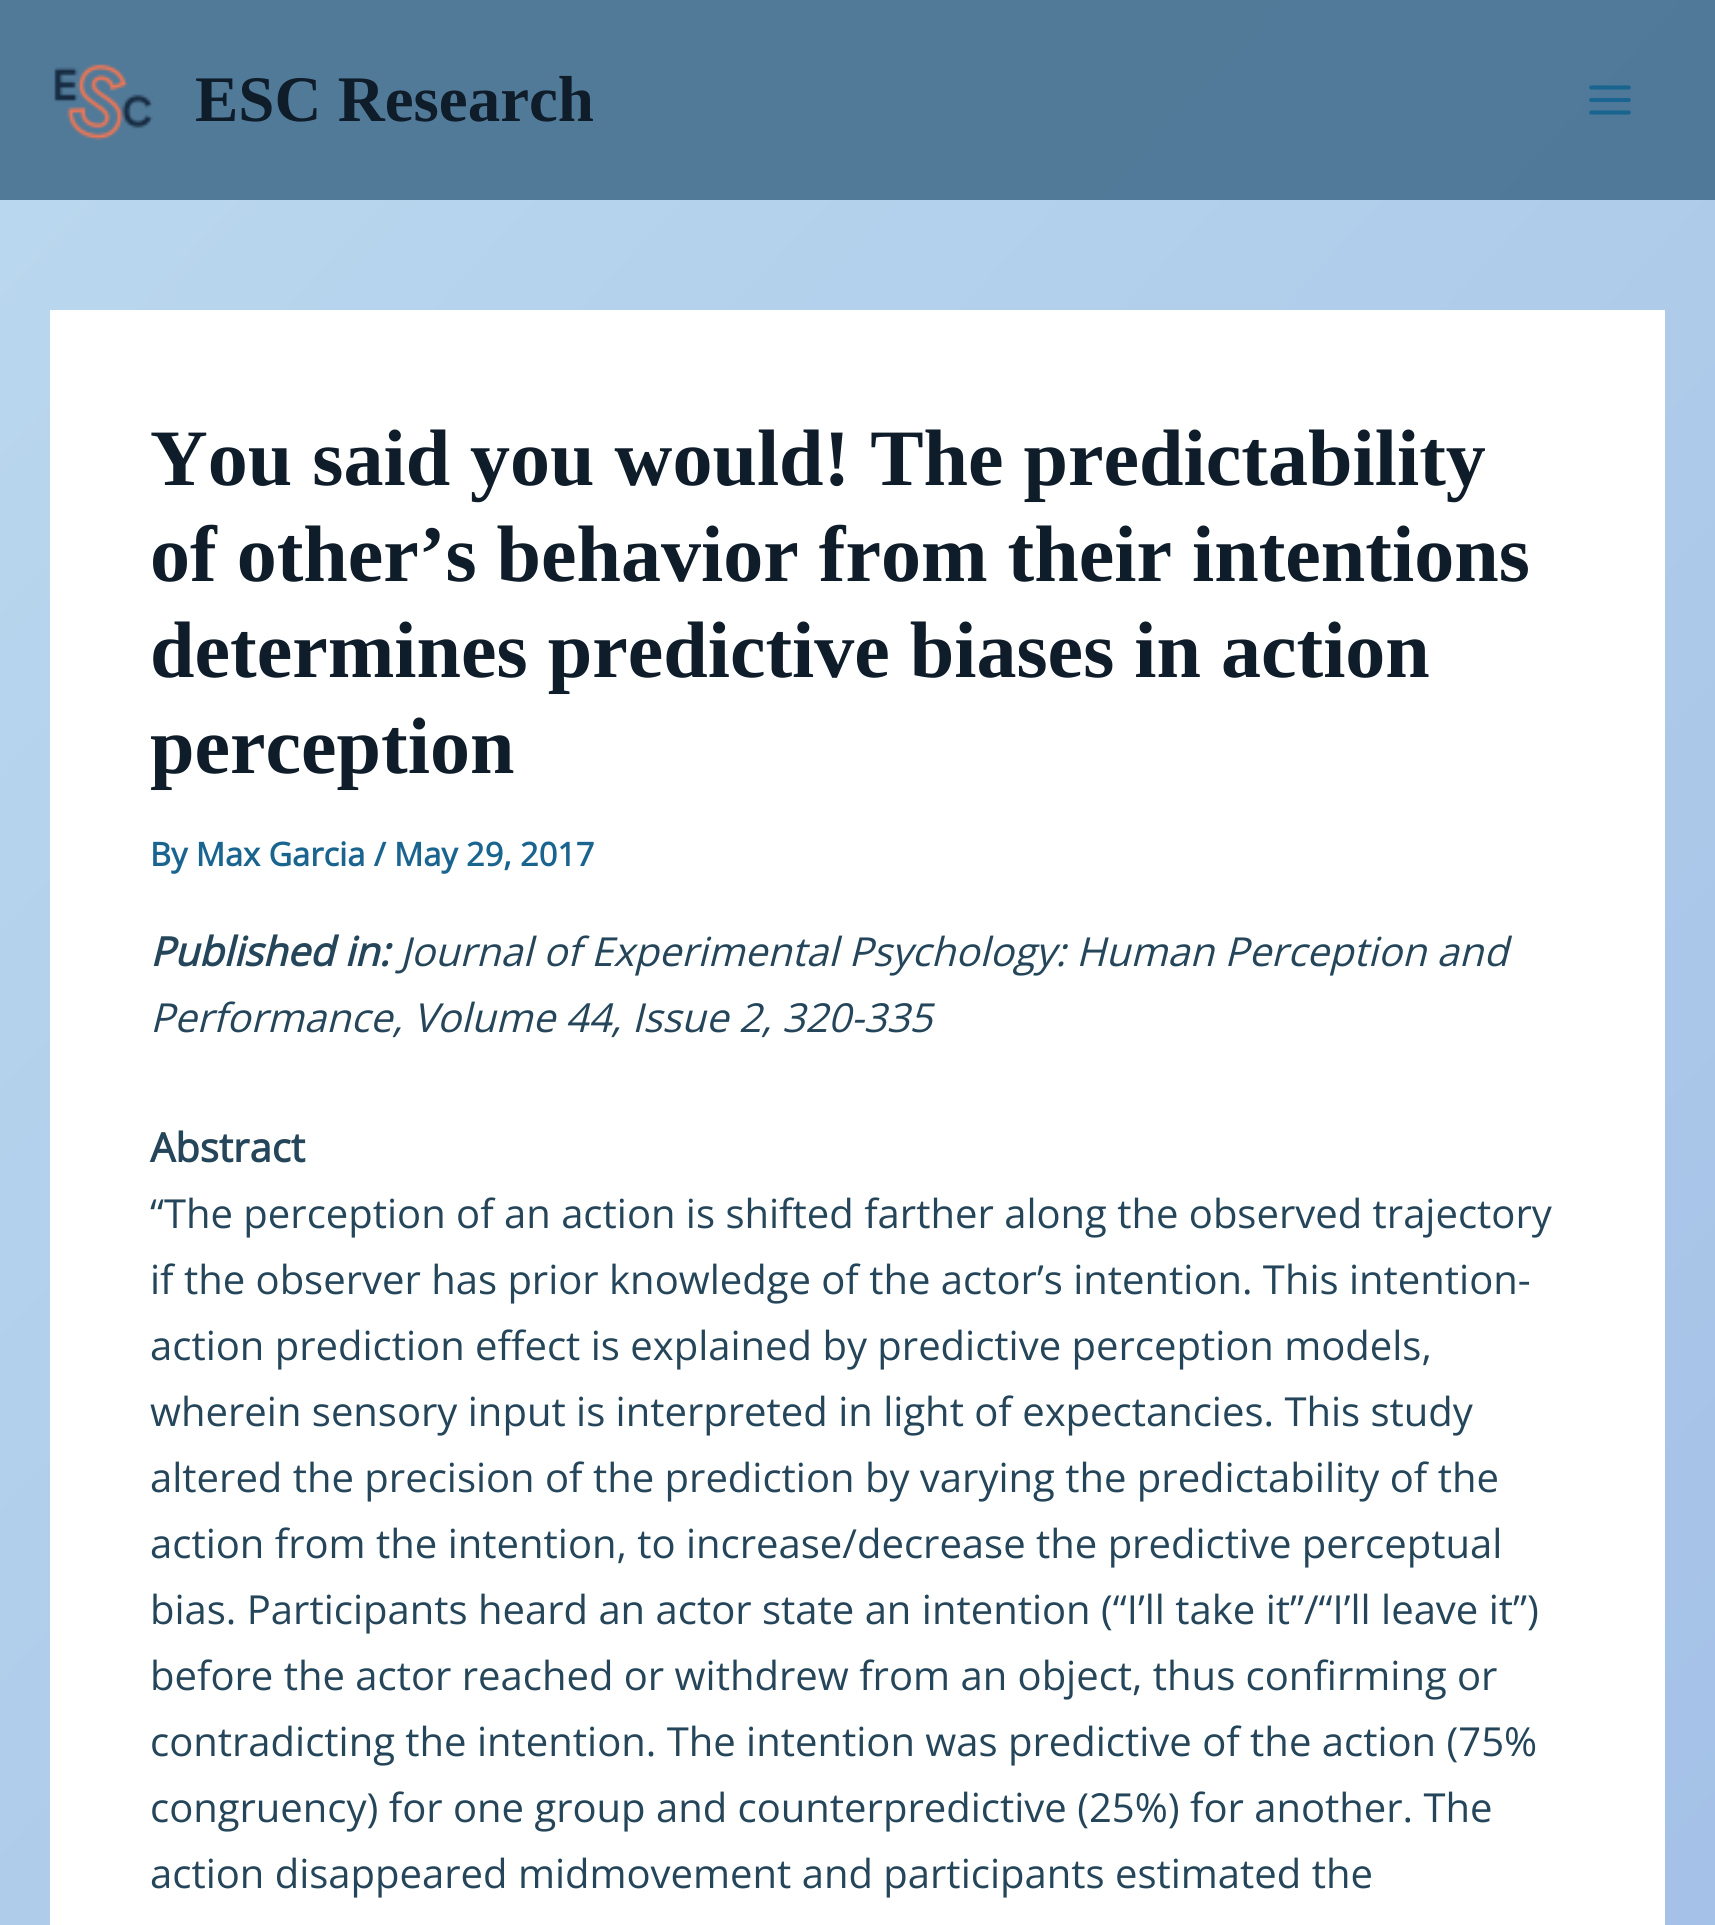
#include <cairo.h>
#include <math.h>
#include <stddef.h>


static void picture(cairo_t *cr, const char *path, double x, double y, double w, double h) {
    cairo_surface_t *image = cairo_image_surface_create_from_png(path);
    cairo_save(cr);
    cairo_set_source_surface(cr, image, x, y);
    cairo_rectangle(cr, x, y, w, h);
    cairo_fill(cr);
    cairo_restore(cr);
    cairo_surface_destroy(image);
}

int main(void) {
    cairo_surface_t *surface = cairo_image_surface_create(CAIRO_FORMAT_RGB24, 1715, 1925);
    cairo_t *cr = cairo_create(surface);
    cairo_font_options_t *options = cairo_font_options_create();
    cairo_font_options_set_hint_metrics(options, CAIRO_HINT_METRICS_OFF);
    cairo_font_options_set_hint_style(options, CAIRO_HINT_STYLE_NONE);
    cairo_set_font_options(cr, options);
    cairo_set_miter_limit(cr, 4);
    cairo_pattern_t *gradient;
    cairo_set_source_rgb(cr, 1, 1, 1);
    cairo_paint(cr);
    gradient = cairo_pattern_create_linear(-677, 726, 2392, 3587);
    cairo_pattern_add_color_stop_rgba(gradient, 0.01, 0.729, 0.847, 0.933, 1);
    cairo_pattern_add_color_stop_rgba(gradient, 0.99, 0.592, 0.698, 0.89, 1);
    cairo_set_source(cr, gradient);
    cairo_pattern_destroy(gradient);
    cairo_rectangle(cr, 0, 200, 1715, 1725);
    cairo_fill(cr);
    gradient = cairo_pattern_create_linear(-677, 726, 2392, 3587);
    cairo_pattern_add_color_stop_rgba(gradient, 0.01, 0.318, 0.478, 0.6, 1);
    cairo_pattern_add_color_stop_rgba(gradient, 0.99, 0.31, 0.471, 0.6, 1);
    cairo_set_source(cr, gradient);
    cairo_pattern_destroy(gradient);
    cairo_rectangle(cr, 0, 0, 1715, 200);
    cairo_fill(cr);
    picture(cr, "img1.png", 54, 64, 99, 77);
    cairo_select_font_face(cr, "Liberation Serif", CAIRO_FONT_SLANT_NORMAL, CAIRO_FONT_WEIGHT_BOLD);
    cairo_set_font_size(cr, 65);
    cairo_set_source_rgb(cr, 0.059, 0.11, 0.161);
    cairo_move_to(cr, 195, 121);
    cairo_show_text(cr, "ESC Research");
    picture(cr, "img2.png", 1589, 85, 42, 30);
    cairo_set_source_rgb(cr, 1, 1, 1);
    cairo_rectangle(cr, 50, 310, 1615, 1615);
    cairo_fill(cr);
    cairo_set_font_size(cr, 80);
    cairo_set_source_rgb(cr, 0.059, 0.11, 0.161);
    cairo_move_to(cr, 150, 485);
    cairo_show_text(cr, "You said you would! The predictability");
    cairo_move_to(cr, 150, 581);
    cairo_show_text(cr, "of other’s behavior from their intentions");
    cairo_move_to(cr, 150, 677);
    cairo_show_text(cr, "determines predictive biases in action");
    cairo_move_to(cr, 150, 773);
    cairo_show_text(cr, "perception");
    cairo_select_font_face(cr, "Open Sans", CAIRO_FONT_SLANT_NORMAL, CAIRO_FONT_WEIGHT_BOLD);
    cairo_set_font_size(cr, 32.5);
    cairo_set_source_rgb(cr, 0.102, 0.396, 0.565);
    cairo_move_to(cr, 150, 866);
    cairo_show_text(cr, "By Max Garcia / May 29, 2017");
    cairo_select_font_face(cr, "Open Sans", CAIRO_FONT_SLANT_ITALIC, CAIRO_FONT_WEIGHT_BOLD);
    cairo_set_font_size(cr, 40);
    cairo_set_source_rgb(cr, 0.145, 0.275, 0.353);
    cairo_move_to(cr, 150, 966);
    cairo_show_text(cr, "Published in:");
    cairo_select_font_face(cr, "Open Sans", CAIRO_FONT_SLANT_ITALIC, CAIRO_FONT_WEIGHT_NORMAL);
    cairo_move_to(cr, 400, 966);
    cairo_show_text(cr, "Journal of Experimental Psychology: Human Perception and");
    cairo_move_to(cr, 150, 1032);
    cairo_show_text(cr, "Performance, Volume 44, Issue 2, 320-335");
    cairo_select_font_face(cr, "Open Sans", CAIRO_FONT_SLANT_NORMAL, CAIRO_FONT_WEIGHT_BOLD);
    cairo_move_to(cr, 150, 1162);
    cairo_show_text(cr, "Abstract");
    cairo_select_font_face(cr, "Open Sans", CAIRO_FONT_SLANT_NORMAL, CAIRO_FONT_WEIGHT_NORMAL);
    cairo_move_to(cr, 150, 1228);
    cairo_show_text(cr, "“The perception of an action is shifted farther along the observed trajectory");
    cairo_move_to(cr, 150, 1294);
    cairo_show_text(cr, "if the observer has prior knowledge of the actor’s intention. This intention-");
    cairo_move_to(cr, 150, 1360);
    cairo_show_text(cr, "action prediction effect is explained by predictive perception models,");
    cairo_move_to(cr, 150, 1426);
    cairo_show_text(cr, "wherein sensory input is interpreted in light of expectancies. This study");
    cairo_move_to(cr, 150, 1492);
    cairo_show_text(cr, "altered the precision of the prediction by varying the predictability of the");
    cairo_move_to(cr, 150, 1558);
    cairo_show_text(cr, "action from the intention, to increase/decrease the predictive perceptual");
    cairo_move_to(cr, 150, 1624);
    cairo_show_text(cr, "bias. Participants heard an actor state an intention (“I’ll take it”/“I’ll leave it”)");
    cairo_move_to(cr, 150, 1690);
    cairo_show_text(cr, "before the actor reached or withdrew from an object, thus confirming or");
    cairo_move_to(cr, 150, 1756);
    cairo_show_text(cr, "contradicting the intention. The intention was predictive of the action (75%");
    cairo_move_to(cr, 150, 1822);
    cairo_show_text(cr, "congruency) for one group and counterpredictive (25%) for another. The");
    cairo_move_to(cr, 150, 1888);
    cairo_show_text(cr, "action disappeared midmovement and participants estimated the");
    cairo_surface_write_to_png(surface, "page.png");
    cairo_font_options_destroy(options);
    cairo_destroy(cr);
    cairo_surface_destroy(surface);
    return 0;
}
